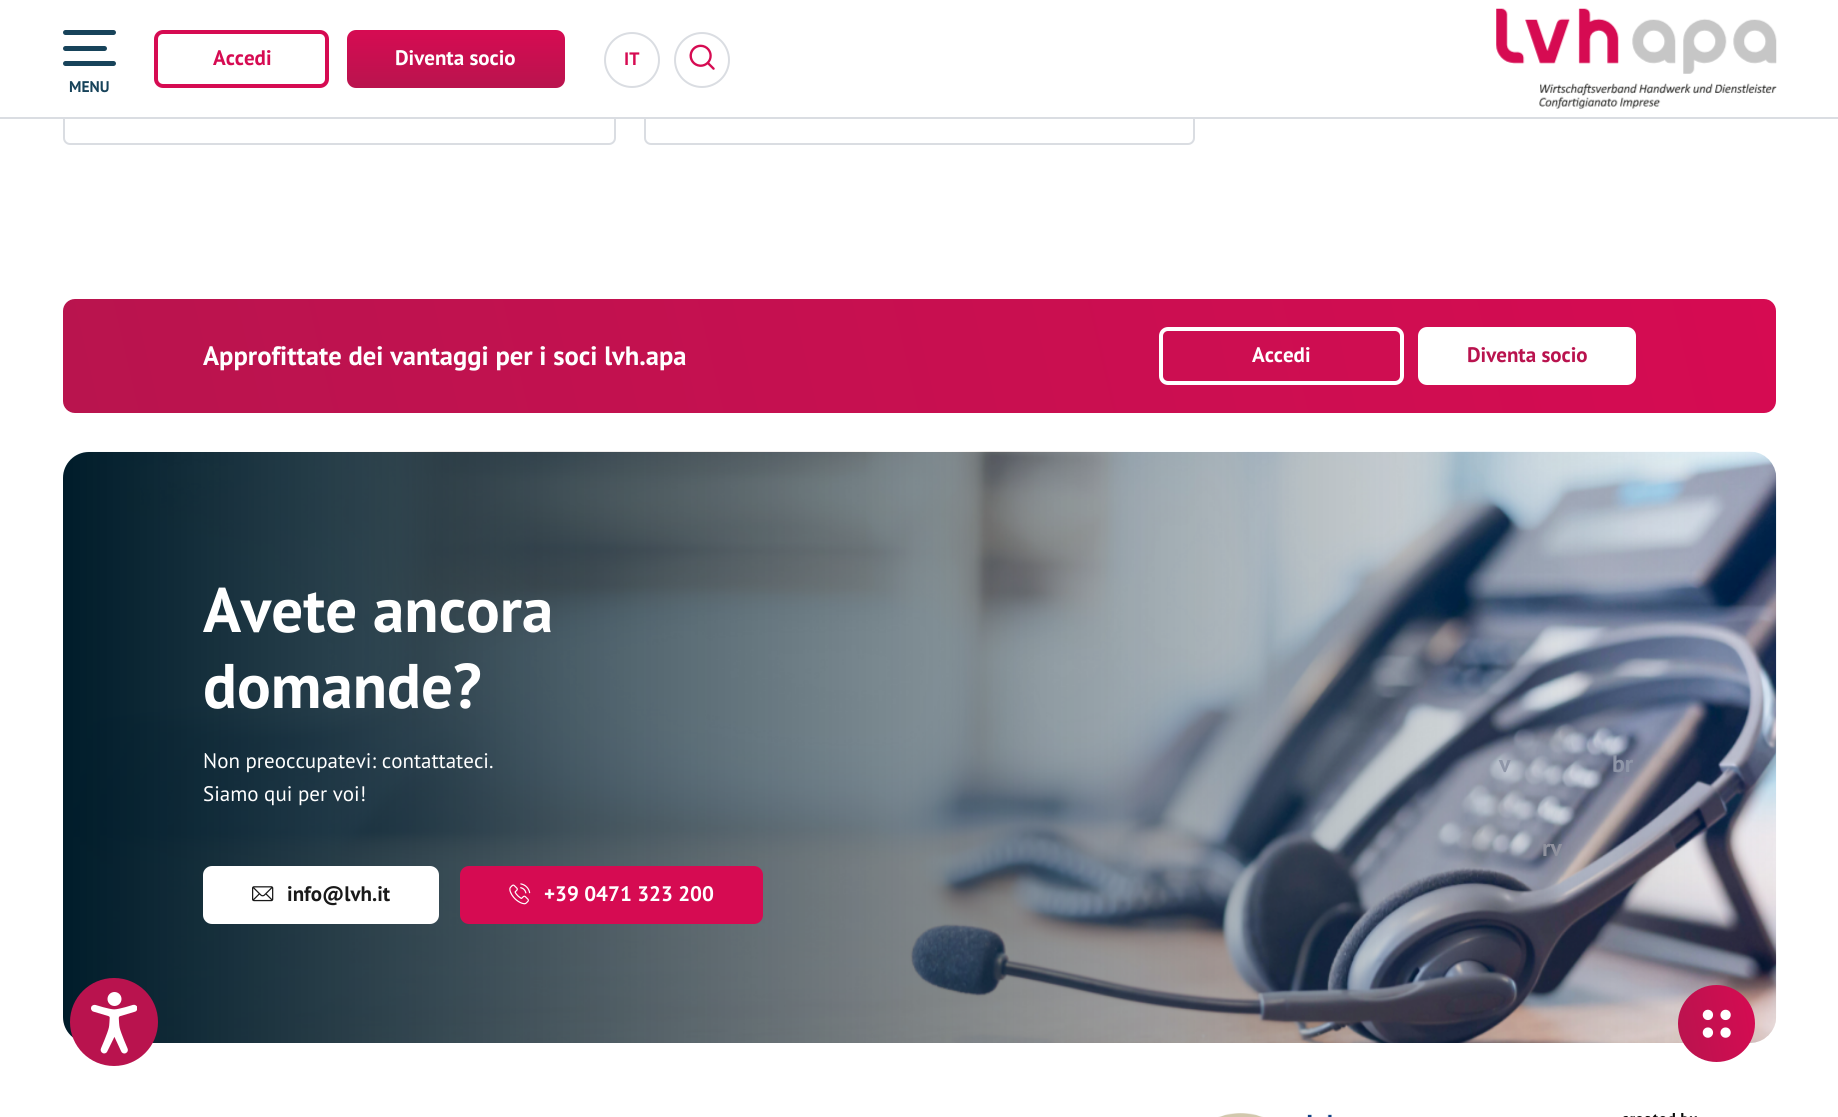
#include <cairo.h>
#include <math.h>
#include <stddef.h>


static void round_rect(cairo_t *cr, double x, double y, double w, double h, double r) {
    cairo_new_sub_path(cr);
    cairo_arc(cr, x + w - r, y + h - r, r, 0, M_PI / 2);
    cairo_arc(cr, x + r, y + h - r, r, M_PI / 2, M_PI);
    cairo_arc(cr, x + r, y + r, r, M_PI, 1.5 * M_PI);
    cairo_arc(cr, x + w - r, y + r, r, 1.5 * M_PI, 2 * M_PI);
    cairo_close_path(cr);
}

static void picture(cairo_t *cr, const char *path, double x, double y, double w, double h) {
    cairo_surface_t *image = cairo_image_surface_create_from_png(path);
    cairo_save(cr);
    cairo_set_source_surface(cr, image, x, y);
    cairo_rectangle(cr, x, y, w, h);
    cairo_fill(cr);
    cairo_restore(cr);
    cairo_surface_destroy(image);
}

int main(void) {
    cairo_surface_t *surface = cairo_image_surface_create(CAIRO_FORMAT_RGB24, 1838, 1117);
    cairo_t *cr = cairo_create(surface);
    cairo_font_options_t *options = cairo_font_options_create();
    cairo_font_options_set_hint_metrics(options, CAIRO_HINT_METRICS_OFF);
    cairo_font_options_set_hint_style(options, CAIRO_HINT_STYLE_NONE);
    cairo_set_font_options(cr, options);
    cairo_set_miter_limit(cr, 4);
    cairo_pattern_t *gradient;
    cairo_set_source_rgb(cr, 1, 1, 1);
    cairo_paint(cr);
    round_rect(cr, 64, -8, 551, 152, 6);
    cairo_set_source_rgb(cr, 0.855, 0.867, 0.886);
    cairo_stroke(cr);
    round_rect(cr, 645, -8, 549, 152, 6);
    cairo_stroke(cr);
    cairo_set_source_rgb(cr, 1, 1, 1);
    cairo_rectangle(cr, 63, 0, 1132, 117);
    cairo_fill(cr);
    cairo_set_source_rgb(cr, 0.855, 0.867, 0.886);
    cairo_rectangle(cr, 0, 117, 1838, 2);
    cairo_fill(cr);
    round_rect(cr, 156, 32, 171, 54, 7);
    cairo_set_source_rgb(cr, 0.839, 0.043, 0.322);
    cairo_set_line_width(cr, 4);
    cairo_stroke(cr);
    cairo_select_font_face(cr, "PT Sans", CAIRO_FONT_SLANT_NORMAL, CAIRO_FONT_WEIGHT_BOLD);
    cairo_set_font_size(cr, 21);
    cairo_move_to(cr, 213, 65);
    cairo_show_text(cr, "Accedi");
    gradient = cairo_pattern_create_linear(456, 30, 456, 88);
    cairo_pattern_add_color_stop_rgba(gradient, 0, 0.839, 0.043, 0.322, 1);
    cairo_pattern_add_color_stop_rgba(gradient, 1, 0.725, 0.078, 0.306, 1);
    cairo_set_source(cr, gradient);
    cairo_pattern_destroy(gradient);
    round_rect(cr, 347, 30, 218, 58, 9);
    cairo_fill(cr);
    cairo_set_source_rgb(cr, 1, 1, 1);
    cairo_move_to(cr, 395, 65);
    cairo_show_text(cr, "Diventa socio");
    cairo_new_path(cr);
    cairo_arc(cr, 632, 60, 27, 0, 2 * M_PI);
    cairo_set_source_rgb(cr, 0.855, 0.867, 0.886);
    cairo_set_line_width(cr, 2);
    cairo_stroke(cr);
    cairo_set_font_size(cr, 18);
    cairo_set_source_rgb(cr, 0.839, 0.043, 0.322);
    cairo_move_to(cr, 624, 65);
    cairo_show_text(cr, "IT");
    cairo_new_path(cr);
    cairo_arc(cr, 702, 60, 27, 0, 2 * M_PI);
    cairo_set_source_rgb(cr, 0.855, 0.867, 0.886);
    cairo_stroke(cr);
    picture(cr, "img1.png", 689, 44, 26, 26);
    cairo_set_source_rgb(cr, 0.09, 0.263, 0.353);
    round_rect(cr, 63, 30, 53, 5, 2.5);
    cairo_fill(cr);
    round_rect(cr, 63, 46, 44, 5, 2.5);
    cairo_fill(cr);
    round_rect(cr, 63, 61, 53, 5, 2.5);
    cairo_fill(cr);
    cairo_set_font_size(cr, 15.5);
    cairo_move_to(cr, 69, 92);
    cairo_show_text(cr, "MENU");
    picture(cr, "img2.png", 1496, 8, 281, 101);
    gradient = cairo_pattern_create_linear(94, 547, 1745, 165);
    cairo_pattern_add_color_stop_rgba(gradient, 0, 0.725, 0.078, 0.306, 1);
    cairo_pattern_add_color_stop_rgba(gradient, 1, 0.839, 0.043, 0.322, 1);
    cairo_set_source(cr, gradient);
    cairo_pattern_destroy(gradient);
    round_rect(cr, 63, 299, 1713, 114, 12);
    cairo_fill(cr);
    cairo_set_font_size(cr, 26.6);
    cairo_set_source_rgb(cr, 1, 1, 1);
    cairo_move_to(cr, 203, 365);
    cairo_show_text(cr, "Approfittate dei vantaggi per i soci lvh.apa");
    round_rect(cr, 1161, 329, 241, 54, 7);
    cairo_set_line_width(cr, 4);
    cairo_stroke(cr);
    cairo_set_font_size(cr, 21);
    cairo_move_to(cr, 1252, 362);
    cairo_show_text(cr, "Accedi");
    round_rect(cr, 1418, 327, 218, 58, 9);
    cairo_fill(cr);
    cairo_set_source_rgb(cr, 0.725, 0.078, 0.306);
    cairo_move_to(cr, 1467, 362);
    cairo_show_text(cr, "Diventa socio");
    picture(cr, "img3.png", 63, 451, 1714, 592);
    gradient = cairo_pattern_create_linear(1776, 747, 63, 747);
    cairo_pattern_add_color_stop_rgba(gradient, 0, 0, 0.11, 0.165, 0);
    cairo_pattern_add_color_stop_rgba(gradient, 0.7, 0, 0.11, 0.165, 0.7);
    cairo_pattern_add_color_stop_rgba(gradient, 1, 0, 0.11, 0.165, 1);
    cairo_set_source(cr, gradient);
    cairo_pattern_destroy(gradient);
    round_rect(cr, 63, 452, 1713, 591, 26);
    cairo_fill(cr);
    cairo_set_font_size(cr, 63);
    cairo_set_source_rgb(cr, 1, 1, 1);
    cairo_move_to(cr, 203, 632);
    cairo_show_text(cr, "Avete ancora");
    cairo_move_to(cr, 203, 708);
    cairo_show_text(cr, "domande?");
    cairo_select_font_face(cr, "PT Sans", CAIRO_FONT_SLANT_NORMAL, CAIRO_FONT_WEIGHT_NORMAL);
    cairo_set_font_size(cr, 21);
    cairo_move_to(cr, 203, 768);
    cairo_show_text(cr, "Non preoccupatevi: contattateci.");
    cairo_move_to(cr, 203, 801);
    cairo_show_text(cr, "Siamo qui per voi!");
    round_rect(cr, 203, 866, 236, 58, 9);
    cairo_fill(cr);
    picture(cr, "img4.png", 252, 886, 22, 16);
    cairo_select_font_face(cr, "PT Sans", CAIRO_FONT_SLANT_NORMAL, CAIRO_FONT_WEIGHT_BOLD);
    cairo_set_source_rgb(cr, 0.098, 0.098, 0.098);
    cairo_move_to(cr, 287, 901);
    cairo_show_text(cr, "info@lvh.it");
    cairo_set_source_rgb(cr, 0.839, 0.043, 0.322);
    round_rect(cr, 460, 866, 303, 58, 9);
    cairo_fill(cr);
    picture(cr, "img5.png", 509, 883, 22, 22);
    cairo_set_source_rgb(cr, 1, 1, 1);
    cairo_move_to(cr, 544, 901);
    cairo_show_text(cr, "+39 0471 323 200");
    cairo_set_font_size(cr, 24);
    cairo_set_source_rgb(cr, 0.561, 0.588, 0.659);
    cairo_move_to(cr, 1499, 772);
    cairo_show_text(cr, "v");
    cairo_move_to(cr, 1612, 772);
    cairo_show_text(cr, "br");
    cairo_set_source_rgb(cr, 0.569, 0.576, 0.624);
    cairo_move_to(cr, 1542, 856);
    cairo_show_text(cr, "rv");
    gradient = cairo_pattern_create_linear(1672, 1032, 1761, 1015);
    cairo_pattern_add_color_stop_rgba(gradient, 0, 0.725, 0.078, 0.306, 1);
    cairo_pattern_add_color_stop_rgba(gradient, 1, 0.839, 0.043, 0.322, 1);
    cairo_set_source(cr, gradient);
    cairo_pattern_destroy(gradient);
    cairo_new_path(cr);
    cairo_arc(cr, 1716.5, 1023.5, 38.5, 0, 2 * M_PI);
    cairo_fill(cr);
    picture(cr, "img6.png", 1702, 1009, 29, 29);
    picture(cr, "img7.png", 1218, 1113, 114, 4);
    picture(cr, "img8.png", 1623, 1113, 74, 4);
    cairo_set_source_rgb(cr, 0.725, 0.078, 0.306);
    cairo_arc(cr, 114, 1022, 44, 0, 2 * M_PI);
    cairo_fill(cr);
    picture(cr, "img9.png", 91, 992, 46, 62);
    cairo_surface_write_to_png(surface, "page.png");
    cairo_font_options_destroy(options);
    cairo_destroy(cr);
    cairo_surface_destroy(surface);
    return 0;
}
